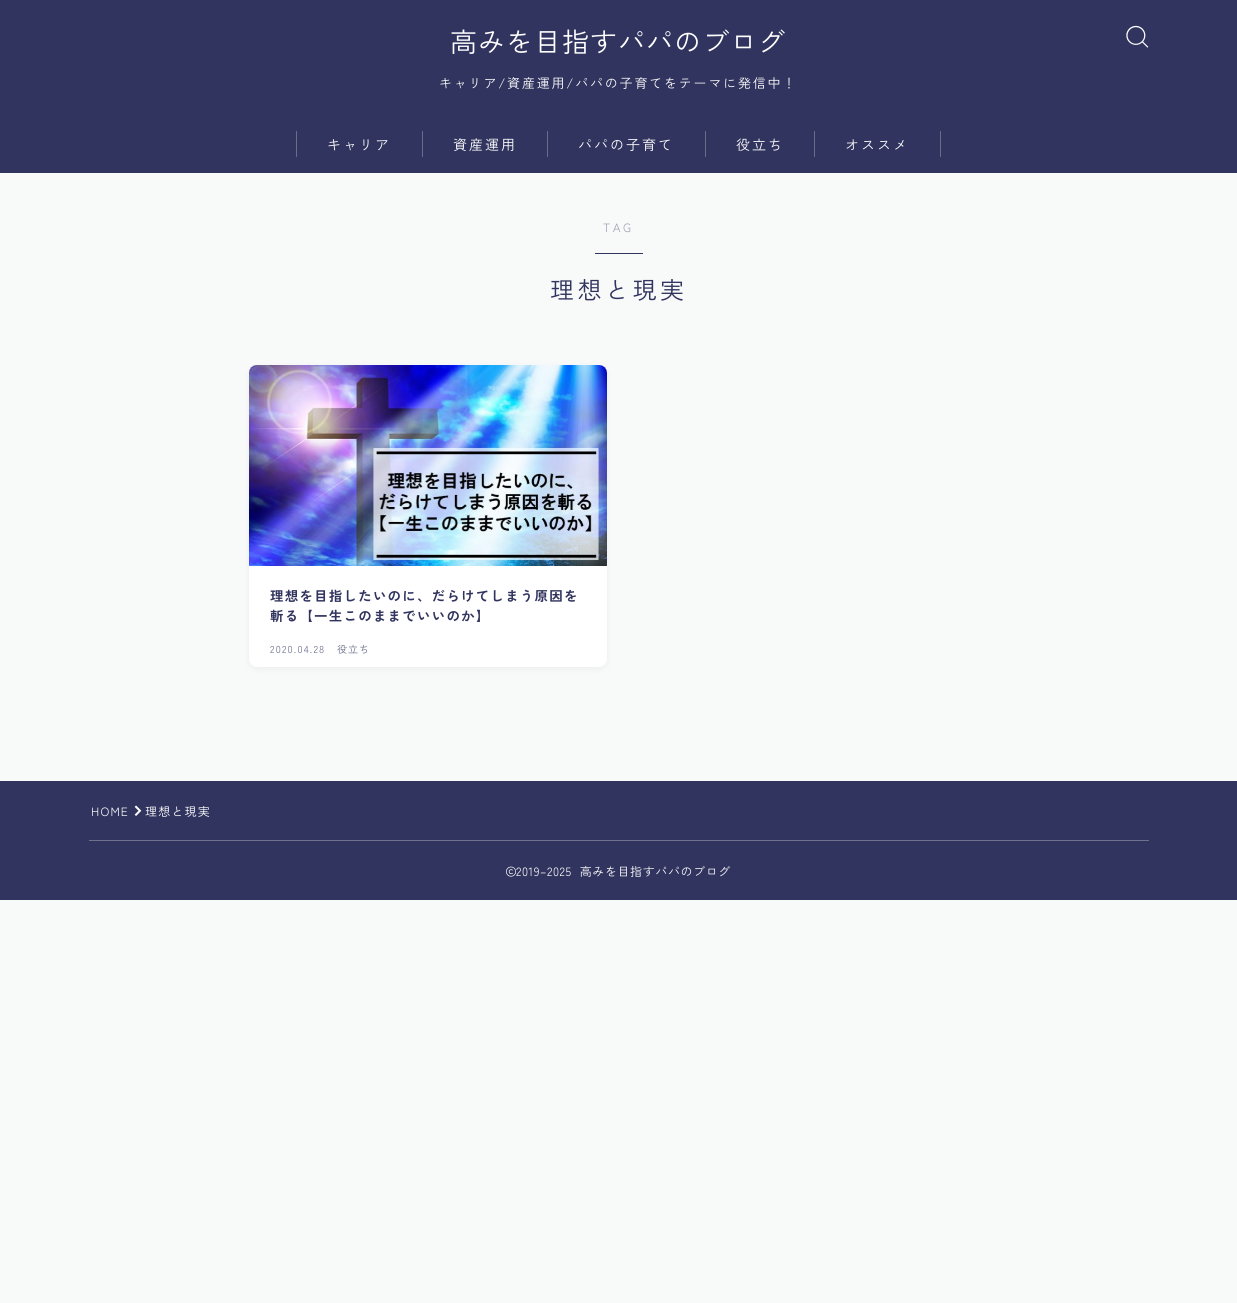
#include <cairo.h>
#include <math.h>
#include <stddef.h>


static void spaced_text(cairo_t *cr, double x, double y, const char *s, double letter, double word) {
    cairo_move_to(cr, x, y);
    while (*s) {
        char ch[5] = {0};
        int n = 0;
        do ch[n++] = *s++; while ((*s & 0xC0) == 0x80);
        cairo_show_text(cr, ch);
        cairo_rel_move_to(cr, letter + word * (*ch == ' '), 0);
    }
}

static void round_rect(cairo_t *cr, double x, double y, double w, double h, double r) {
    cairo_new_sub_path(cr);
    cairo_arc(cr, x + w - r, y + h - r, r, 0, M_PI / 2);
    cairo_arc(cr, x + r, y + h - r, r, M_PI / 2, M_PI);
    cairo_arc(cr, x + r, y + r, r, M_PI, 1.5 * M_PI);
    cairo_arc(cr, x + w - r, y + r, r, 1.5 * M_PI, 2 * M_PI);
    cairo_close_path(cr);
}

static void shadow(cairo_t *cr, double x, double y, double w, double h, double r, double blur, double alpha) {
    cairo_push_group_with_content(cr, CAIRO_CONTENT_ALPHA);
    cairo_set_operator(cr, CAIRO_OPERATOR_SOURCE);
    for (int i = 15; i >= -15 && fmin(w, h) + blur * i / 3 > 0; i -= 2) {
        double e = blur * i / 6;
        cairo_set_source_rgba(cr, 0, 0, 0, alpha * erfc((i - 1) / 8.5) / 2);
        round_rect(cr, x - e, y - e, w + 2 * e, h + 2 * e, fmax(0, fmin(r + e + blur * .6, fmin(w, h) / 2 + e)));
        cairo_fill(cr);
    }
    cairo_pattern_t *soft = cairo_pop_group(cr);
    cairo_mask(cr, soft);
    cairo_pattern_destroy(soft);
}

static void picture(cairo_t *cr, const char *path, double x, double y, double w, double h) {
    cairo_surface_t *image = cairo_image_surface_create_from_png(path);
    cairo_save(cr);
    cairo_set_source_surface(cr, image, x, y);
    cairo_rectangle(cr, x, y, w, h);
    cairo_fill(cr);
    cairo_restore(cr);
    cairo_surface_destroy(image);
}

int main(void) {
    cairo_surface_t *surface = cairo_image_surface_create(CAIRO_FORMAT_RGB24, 1237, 1303);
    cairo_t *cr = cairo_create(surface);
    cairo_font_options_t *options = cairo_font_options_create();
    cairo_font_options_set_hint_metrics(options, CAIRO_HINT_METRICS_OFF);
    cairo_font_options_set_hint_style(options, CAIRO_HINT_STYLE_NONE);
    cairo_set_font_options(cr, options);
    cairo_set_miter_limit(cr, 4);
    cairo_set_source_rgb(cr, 0.969, 0.976, 0.976);
    cairo_paint(cr);
    cairo_set_source_rgb(cr, 0.192, 0.204, 0.369);
    cairo_rectangle(cr, 0, 0, 1237, 173);
    cairo_fill(cr);
    cairo_select_font_face(cr, "Zen Kaku Gothic New", CAIRO_FONT_SLANT_NORMAL, CAIRO_FONT_WEIGHT_NORMAL);
    cairo_set_font_size(cr, 27);
    cairo_set_source_rgb(cr, 1, 1, 1);
    spaced_text(cr, 450, 52, "高みを目指すパパのブログ", 1, 0);
    cairo_set_font_size(cr, 13);
    spaced_text(cr, 439, 88, "キャリア/資産運用/パパの子育てをテーマに発信中！", 1.8, 0);
    picture(cr, "img1.png", 1126, 25, 23, 23);
    cairo_set_source_rgb(cr, 0.412, 0.42, 0.537);
    cairo_rectangle(cr, 422, 131, 1, 26);
    cairo_fill(cr);
    cairo_rectangle(cr, 296, 131, 1, 26);
    cairo_fill(cr);
    cairo_set_font_size(cr, 14);
    cairo_set_source_rgb(cr, 1, 1, 1);
    spaced_text(cr, 327, 150, "キャリア", 2, 0);
    cairo_set_source_rgb(cr, 0.412, 0.42, 0.537);
    cairo_rectangle(cr, 547, 131, 1, 26);
    cairo_fill(cr);
    cairo_set_source_rgb(cr, 1, 1, 1);
    spaced_text(cr, 453, 150, "資産運用", 2, 0);
    cairo_set_source_rgb(cr, 0.412, 0.42, 0.537);
    cairo_rectangle(cr, 705, 131, 1, 26);
    cairo_fill(cr);
    cairo_set_source_rgb(cr, 1, 1, 1);
    spaced_text(cr, 578, 150, "パパの子育て", 2, 0);
    cairo_set_source_rgb(cr, 0.412, 0.42, 0.537);
    cairo_rectangle(cr, 814, 131, 1, 26);
    cairo_fill(cr);
    cairo_set_source_rgb(cr, 1, 1, 1);
    spaced_text(cr, 736, 150, "役立ち", 2, 0);
    cairo_set_source_rgb(cr, 0.412, 0.42, 0.537);
    cairo_rectangle(cr, 940, 131, 1, 26);
    cairo_fill(cr);
    cairo_set_source_rgb(cr, 1, 1, 1);
    spaced_text(cr, 845, 150, "オススメ", 2, 0);
    cairo_set_font_size(cr, 12);
    cairo_set_source_rgb(cr, 0.62, 0.627, 0.702);
    spaced_text(cr, 603, 232, "TAG", 2.5, 0);
    cairo_set_source_rgb(cr, 0.192, 0.204, 0.369);
    cairo_rectangle(cr, 595, 253, 48, 1);
    cairo_fill(cr);
    cairo_set_font_size(cr, 24);
    spaced_text(cr, 550, 299, "理想と現実", 3.5, 0);
    cairo_set_source_rgb(cr, 0.667, 0.667, 0.667);
    shadow(cr, 249, 367, 358, 302, 8, 3, 0.15);
    cairo_set_source_rgb(cr, 1, 1, 1);
    round_rect(cr, 249, 365, 358, 302, 8);
    cairo_fill(cr);
    picture(cr, "img2.png", 249, 365, 358, 201);
    cairo_select_font_face(cr, "Zen Kaku Gothic New", CAIRO_FONT_SLANT_NORMAL, CAIRO_FONT_WEIGHT_BOLD);
    cairo_set_font_size(cr, 13.5);
    cairo_set_source_rgb(cr, 0.192, 0.204, 0.369);
    spaced_text(cr, 270, 601, "理想を目指したいのに、だらけてしまう原因を", 1.2, 0);
    spaced_text(cr, 270, 621, "斬る【一生このままでいいのか】", 1.2, 0);
    cairo_select_font_face(cr, "Zen Kaku Gothic New", CAIRO_FONT_SLANT_NORMAL, CAIRO_FONT_WEIGHT_NORMAL);
    cairo_set_font_size(cr, 10);
    cairo_set_source_rgb(cr, 0.396, 0.404, 0.525);
    spaced_text(cr, 270, 653, "2020.04.28", 1.2, 0);
    spaced_text(cr, 337, 653, "役立ち", 1, 0);
    cairo_set_source_rgb(cr, 0.192, 0.204, 0.369);
    cairo_rectangle(cr, 0, 781, 1237, 119);
    cairo_fill(cr);
    cairo_set_font_size(cr, 12);
    cairo_set_source_rgb(cr, 1, 1, 1);
    spaced_text(cr, 91, 816, "HOME", 1.2, 0);
    picture(cr, "img3.png", 134, 805, 8, 11);
    spaced_text(cr, 145, 816, "理想と現実", 1.2, 0);
    cairo_set_source_rgb(cr, 0.435, 0.443, 0.557);
    cairo_rectangle(cr, 89, 840, 1060, 1);
    cairo_fill(cr);
    picture(cr, "img4.png", 506, 866, 10, 11);
    cairo_set_source_rgb(cr, 1, 1, 1);
    spaced_text(cr, 516, 876, "2019–2025  高みを目指すパパのブログ", 0.6, 0);
    cairo_surface_write_to_png(surface, "page.png");
    cairo_font_options_destroy(options);
    cairo_destroy(cr);
    cairo_surface_destroy(surface);
    return 0;
}
